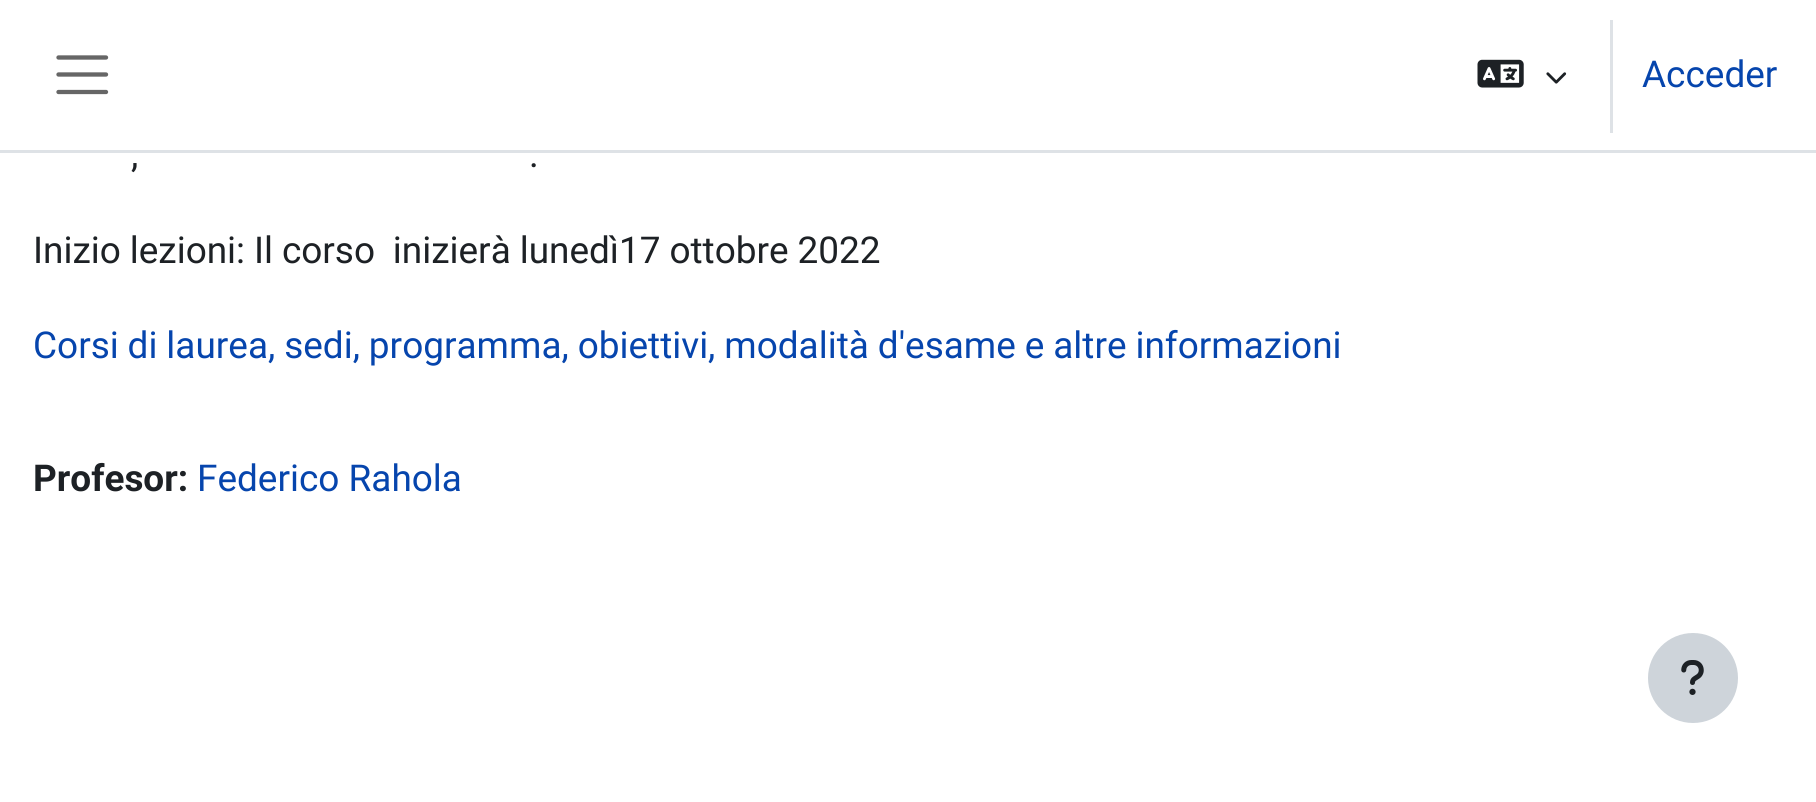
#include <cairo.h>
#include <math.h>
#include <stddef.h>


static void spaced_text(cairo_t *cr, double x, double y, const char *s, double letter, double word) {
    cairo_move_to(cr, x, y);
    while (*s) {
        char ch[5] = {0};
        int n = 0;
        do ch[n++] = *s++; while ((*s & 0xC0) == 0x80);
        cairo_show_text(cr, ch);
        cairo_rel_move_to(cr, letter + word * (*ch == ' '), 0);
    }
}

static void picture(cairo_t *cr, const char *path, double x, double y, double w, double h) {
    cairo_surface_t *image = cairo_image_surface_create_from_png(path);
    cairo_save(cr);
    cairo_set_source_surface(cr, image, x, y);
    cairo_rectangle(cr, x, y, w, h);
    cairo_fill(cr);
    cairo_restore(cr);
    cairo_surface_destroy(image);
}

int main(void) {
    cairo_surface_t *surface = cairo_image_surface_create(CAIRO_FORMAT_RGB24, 1816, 802);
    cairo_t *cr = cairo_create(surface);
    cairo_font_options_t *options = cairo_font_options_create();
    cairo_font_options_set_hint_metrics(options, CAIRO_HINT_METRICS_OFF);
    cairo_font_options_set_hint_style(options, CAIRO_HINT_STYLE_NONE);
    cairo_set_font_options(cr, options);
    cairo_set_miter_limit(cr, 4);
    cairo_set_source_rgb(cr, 1, 1, 1);
    cairo_paint(cr);
    cairo_set_source_rgb(cr, 0.871, 0.886, 0.902);
    cairo_rectangle(cr, 0, 150, 1816, 3);
    cairo_fill(cr);
    cairo_new_path(cr);
    cairo_move_to(cr, 58.5, 57.5);
    cairo_line_to(cr, 106, 57.5);
    cairo_move_to(cr, 58.5, 74.5);
    cairo_line_to(cr, 106, 74.5);
    cairo_move_to(cr, 58.5, 92);
    cairo_line_to(cr, 106, 92);
    cairo_set_source_rgb(cr, 0.4, 0.4, 0.4);
    cairo_set_line_width(cr, 4.3);
    cairo_set_line_cap(cr, CAIRO_LINE_CAP_ROUND);
    cairo_stroke(cr);
    picture(cr, "img1.png", 1477, 59, 47, 29);
    picture(cr, "img2.png", 1546, 72, 21, 12);
    cairo_set_source_rgb(cr, 0.871, 0.886, 0.902);
    cairo_rectangle(cr, 1610, 20, 3, 113);
    cairo_fill(cr);
    cairo_select_font_face(cr, "Roboto", CAIRO_FONT_SLANT_NORMAL, CAIRO_FONT_WEIGHT_NORMAL);
    cairo_set_font_size(cr, 36.95);
    cairo_set_source_rgb(cr, 0.024, 0.271, 0.678);
    cairo_move_to(cr, 1642, 87);
    cairo_show_text(cr, "Acceder");
    cairo_set_source_rgb(cr, 0.114, 0.129, 0.145);
    cairo_move_to(cr, 131, 167);
    cairo_show_text(cr, ",");
    cairo_move_to(cr, 529, 167);
    cairo_show_text(cr, ".");
    spaced_text(cr, 33, 263, "Inizio lezioni: Il corso  inizierà lunedì17 ottobre 2022", 0, -0.25);
    cairo_set_source_rgb(cr, 0.024, 0.271, 0.678);
    spaced_text(cr, 33, 358, "Corsi di laurea, sedi, programma, obiettivi, modalità d'esame e altre informazioni", 0, -0.25);
    cairo_select_font_face(cr, "Roboto", CAIRO_FONT_SLANT_NORMAL, CAIRO_FONT_WEIGHT_BOLD);
    cairo_set_source_rgb(cr, 0.114, 0.129, 0.145);
    cairo_move_to(cr, 33, 491);
    cairo_show_text(cr, "Profesor:");
    cairo_select_font_face(cr, "Roboto", CAIRO_FONT_SLANT_NORMAL, CAIRO_FONT_WEIGHT_NORMAL);
    cairo_set_source_rgb(cr, 0.024, 0.271, 0.678);
    cairo_move_to(cr, 197, 491);
    cairo_show_text(cr, "Federico Rahola");
    cairo_set_source_rgb(cr, 0.808, 0.831, 0.855);
    cairo_new_path(cr);
    cairo_arc(cr, 1693, 678, 45, 0, 2 * M_PI);
    cairo_fill(cr);
    picture(cr, "img3.png", 1681, 660, 23, 35);
    cairo_surface_write_to_png(surface, "page.png");
    cairo_font_options_destroy(options);
    cairo_destroy(cr);
    cairo_surface_destroy(surface);
    return 0;
}
